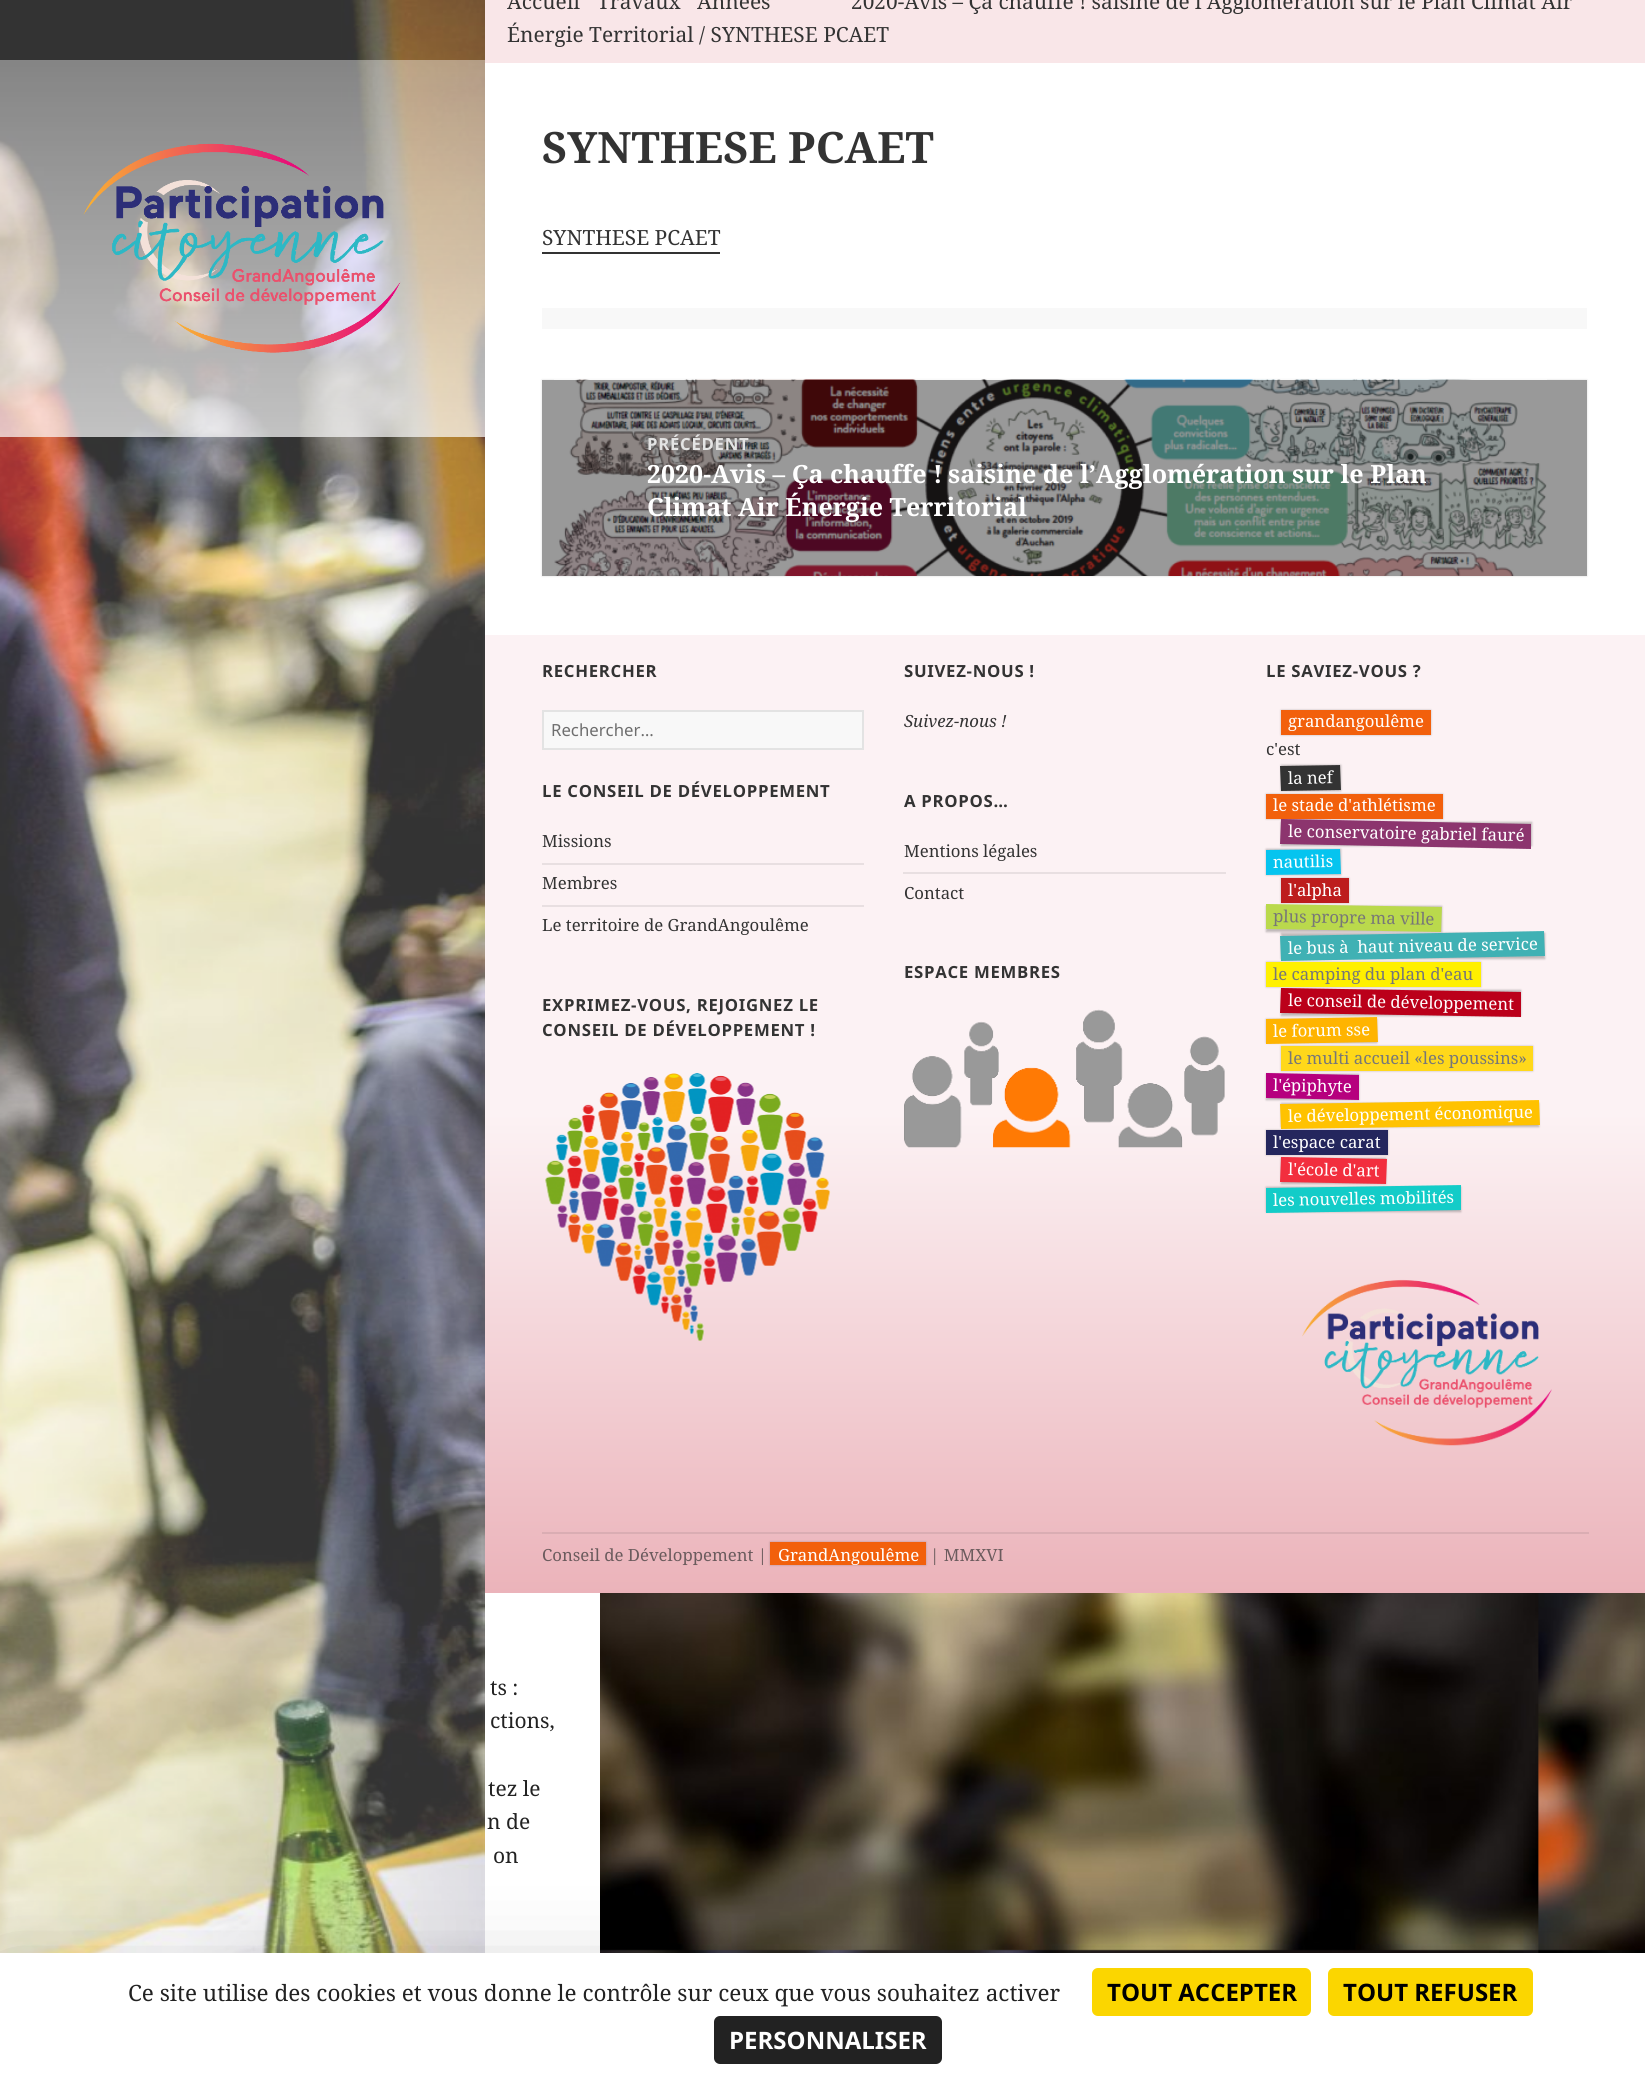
#include <cairo.h>
#include <math.h>
#include <stddef.h>


static void spaced_text(cairo_t *cr, double x, double y, const char *s, double letter, double word) {
    cairo_move_to(cr, x, y);
    while (*s) {
        char ch[5] = {0};
        int n = 0;
        do ch[n++] = *s++; while ((*s & 0xC0) == 0x80);
        cairo_show_text(cr, ch);
        cairo_rel_move_to(cr, letter + word * (*ch == ' '), 0);
    }
}

static void round_rect(cairo_t *cr, double x, double y, double w, double h, double r) {
    cairo_new_sub_path(cr);
    cairo_arc(cr, x + w - r, y + h - r, r, 0, M_PI / 2);
    cairo_arc(cr, x + r, y + h - r, r, M_PI / 2, M_PI);
    cairo_arc(cr, x + r, y + r, r, M_PI, 1.5 * M_PI);
    cairo_arc(cr, x + w - r, y + r, r, 1.5 * M_PI, 2 * M_PI);
    cairo_close_path(cr);
}

static void shadow(cairo_t *cr, double x, double y, double w, double h, double r, double blur, double alpha) {
    cairo_push_group_with_content(cr, CAIRO_CONTENT_ALPHA);
    cairo_set_operator(cr, CAIRO_OPERATOR_SOURCE);
    for (int i = 15; i >= -15 && fmin(w, h) + blur * i / 3 > 0; i -= 2) {
        double e = blur * i / 6;
        cairo_set_source_rgba(cr, 0, 0, 0, alpha * erfc((i - 1) / 8.5) / 2);
        round_rect(cr, x - e, y - e, w + 2 * e, h + 2 * e, fmax(0, fmin(r + e + blur * .6, fmin(w, h) / 2 + e)));
        cairo_fill(cr);
    }
    cairo_pattern_t *soft = cairo_pop_group(cr);
    cairo_mask(cr, soft);
    cairo_pattern_destroy(soft);
}

static void picture(cairo_t *cr, const char *path, double x, double y, double w, double h) {
    cairo_surface_t *image = cairo_image_surface_create_from_png(path);
    cairo_save(cr);
    cairo_set_source_surface(cr, image, x, y);
    cairo_rectangle(cr, x, y, w, h);
    cairo_fill(cr);
    cairo_restore(cr);
    cairo_surface_destroy(image);
}

int main(void) {
    cairo_surface_t *surface = cairo_image_surface_create(CAIRO_FORMAT_RGB24, 1645, 2078);
    cairo_t *cr = cairo_create(surface);
    cairo_font_options_t *options = cairo_font_options_create();
    cairo_font_options_set_hint_metrics(options, CAIRO_HINT_METRICS_OFF);
    cairo_font_options_set_hint_style(options, CAIRO_HINT_STYLE_NONE);
    cairo_set_font_options(cr, options);
    cairo_set_miter_limit(cr, 4);
    cairo_pattern_t *gradient;
    cairo_set_source_rgb(cr, 1, 1, 1);
    cairo_paint(cr);
    picture(cr, "img1.png", 482, 0, 1163, 1953);
    cairo_set_source_rgb(cr, 1, 1, 1);
    cairo_rectangle(cr, 482, 1593, 118, 360);
    cairo_fill(cr);
    picture(cr, "img2.png", 0, 0, 485, 1953);
    cairo_set_source_rgba(cr, 1, 1, 1, 0.2);
    cairo_rectangle(cr, 0, 0, 485, 1953);
    cairo_fill(cr);
    gradient = cairo_pattern_create_linear(242, 60, 242, 437);
    cairo_pattern_add_color_stop_rgba(gradient, 0, 1, 1, 1, 0.4);
    cairo_pattern_add_color_stop_rgba(gradient, 1, 1, 1, 1, 0.7);
    cairo_set_source(cr, gradient);
    cairo_pattern_destroy(gradient);
    cairo_rectangle(cr, 0, 60, 485, 377);
    cairo_fill(cr);
    picture(cr, "img3.png", 83, 143, 318, 210);
    cairo_set_source_rgb(cr, 0.973, 0.902, 0.91);
    cairo_rectangle(cr, 485, 0, 1160, 63);
    cairo_fill(cr);
    cairo_select_font_face(cr, "Noto Serif", CAIRO_FONT_SLANT_NORMAL, CAIRO_FONT_WEIGHT_NORMAL);
    cairo_set_font_size(cr, 20.9);
    cairo_set_source_rgb(cr, 0.2, 0.2, 0.2);
    cairo_move_to(cr, 507, 9);
    cairo_show_text(cr, "Accueil");
    cairo_move_to(cr, 597, 9);
    cairo_show_text(cr, "Travaux");
    cairo_move_to(cr, 697, 9);
    cairo_show_text(cr, "Années");
    cairo_move_to(cr, 851, 9);
    cairo_show_text(cr, "2020-Avis – Ça chauffe ! saisine de l’Agglomération sur le Plan Climat Air");
    cairo_move_to(cr, 507, 42);
    cairo_show_text(cr, "Énergie Territorial / SYNTHESE PCAET");
    cairo_set_source_rgb(cr, 1, 1, 1);
    cairo_rectangle(cr, 485, 63, 1160, 572);
    cairo_fill(cr);
    cairo_select_font_face(cr, "Noto Serif", CAIRO_FONT_SLANT_NORMAL, CAIRO_FONT_WEIGHT_BOLD);
    cairo_set_font_size(cr, 43.25);
    cairo_set_source_rgb(cr, 0.2, 0.2, 0.2);
    cairo_move_to(cr, 542, 163);
    cairo_show_text(cr, "SYNTHESE PCAET");
    cairo_select_font_face(cr, "Noto Serif", CAIRO_FONT_SLANT_NORMAL, CAIRO_FONT_WEIGHT_NORMAL);
    cairo_set_font_size(cr, 20.9);
    cairo_move_to(cr, 542, 245);
    cairo_show_text(cr, "SYNTHESE PCAET");
    cairo_rectangle(cr, 542, 252, 178, 2);
    cairo_fill(cr);
    cairo_set_source_rgb(cr, 0.969, 0.969, 0.969);
    cairo_rectangle(cr, 542, 308, 1045, 21);
    cairo_fill(cr);
    cairo_save(cr);
    cairo_set_fill_rule(cr, CAIRO_FILL_RULE_EVEN_ODD);
    cairo_new_path(cr);
    cairo_move_to(cr, 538, 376);
    cairo_line_to(cr, 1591, 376);
    cairo_line_to(cr, 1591, 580);
    cairo_line_to(cr, 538, 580);
    cairo_close_path(cr);
    cairo_move_to(cr, 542, 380);
    cairo_line_to(cr, 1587, 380);
    cairo_line_to(cr, 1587, 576);
    cairo_line_to(cr, 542, 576);
    cairo_close_path(cr);
    cairo_clip(cr);
    cairo_set_source_rgb(cr, 0, 0, 0);
    shadow(cr, 542, 380, 1045, 196, 0, 1, 0.15);
    cairo_restore(cr);
    picture(cr, "img4.png", 554, 379, 993, 197);
    cairo_set_source_rgba(cr, 0, 0, 0, 0.4);
    cairo_rectangle(cr, 542, 380, 1045, 196);
    cairo_fill(cr);
    cairo_select_font_face(cr, "Noto Sans", CAIRO_FONT_SLANT_NORMAL, CAIRO_FONT_WEIGHT_BOLD);
    cairo_set_font_size(cr, 16.75);
    cairo_set_source_rgb(cr, 0.894, 0.894, 0.894);
    spaced_text(cr, 647, 450, "PRÉCÉDENT", 0.7, 0);
    cairo_select_font_face(cr, "Noto Serif", CAIRO_FONT_SLANT_NORMAL, CAIRO_FONT_WEIGHT_BOLD);
    cairo_set_font_size(cr, 25.1);
    cairo_set_source_rgb(cr, 1, 1, 1);
    cairo_move_to(cr, 647, 483);
    cairo_show_text(cr, "2020-Avis – Ça chauffe !");
    cairo_move_to(cr, 948, 483);
    cairo_show_text(cr, "saisine de l’Agglomération sur le Plan");
    cairo_move_to(cr, 647, 516);
    cairo_show_text(cr, "Climat Air Énergie Territorial");
    gradient = cairo_pattern_create_linear(1065, 634, 1065, 1593);
    cairo_pattern_add_color_stop_rgba(gradient, 0.5, 0.988, 0.949, 0.957, 1);
    cairo_pattern_add_color_stop_rgba(gradient, 1, 0.922, 0.702, 0.729, 1);
    cairo_set_source(cr, gradient);
    cairo_pattern_destroy(gradient);
    cairo_rectangle(cr, 485, 635, 1160, 958);
    cairo_fill(cr);
    cairo_select_font_face(cr, "Noto Sans", CAIRO_FONT_SLANT_NORMAL, CAIRO_FONT_WEIGHT_BOLD);
    cairo_set_font_size(cr, 16.75);
    cairo_set_source_rgb(cr, 0.2, 0.2, 0.2);
    spaced_text(cr, 542, 677, "RECHERCHER", 0.7, 0);
    cairo_set_source_rgb(cr, 0.969, 0.969, 0.969);
    cairo_rectangle(cr, 543, 711, 320, 38);
    cairo_fill_preserve(cr);
    cairo_set_source_rgb(cr, 0.89, 0.89, 0.89);
    cairo_stroke(cr);
    cairo_select_font_face(cr, "Noto Sans", CAIRO_FONT_SLANT_NORMAL, CAIRO_FONT_WEIGHT_NORMAL);
    cairo_set_source_rgb(cr, 0.431, 0.431, 0.431);
    cairo_move_to(cr, 551, 736);
    cairo_show_text(cr, "Rechercher…");
    cairo_select_font_face(cr, "Noto Sans", CAIRO_FONT_SLANT_NORMAL, CAIRO_FONT_WEIGHT_BOLD);
    cairo_set_source_rgb(cr, 0.2, 0.2, 0.2);
    spaced_text(cr, 542, 797, "LE CONSEIL DE DÉVELOPPEMENT", 0.7, 0);
    cairo_select_font_face(cr, "Noto Serif", CAIRO_FONT_SLANT_NORMAL, CAIRO_FONT_WEIGHT_NORMAL);
    cairo_move_to(cr, 542, 847);
    cairo_show_text(cr, "Missions");
    cairo_set_source_rgb(cr, 0.91, 0.875, 0.882);
    cairo_rectangle(cr, 542, 863, 322, 2);
    cairo_fill(cr);
    cairo_set_source_rgb(cr, 0.2, 0.2, 0.2);
    cairo_move_to(cr, 542, 889);
    cairo_show_text(cr, "Membres");
    cairo_set_source_rgb(cr, 0.91, 0.875, 0.882);
    cairo_rectangle(cr, 542, 905, 322, 2);
    cairo_fill(cr);
    cairo_set_source_rgb(cr, 0.2, 0.2, 0.2);
    cairo_move_to(cr, 542, 931);
    cairo_show_text(cr, "Le territoire de GrandAngoulême");
    cairo_select_font_face(cr, "Noto Sans", CAIRO_FONT_SLANT_NORMAL, CAIRO_FONT_WEIGHT_BOLD);
    spaced_text(cr, 542, 1011, "EXPRIMEZ-VOUS, REJOIGNEZ LE", 0.7, 0);
    spaced_text(cr, 542, 1036, "CONSEIL DE DÉVELOPPEMENT !", 0.7, 0);
    picture(cr, "img5.png", 545, 1073, 286, 268);
    spaced_text(cr, 904, 677, "SUIVEZ-NOUS !", 0.7, 0);
    cairo_select_font_face(cr, "Noto Serif", CAIRO_FONT_SLANT_ITALIC, CAIRO_FONT_WEIGHT_NORMAL);
    cairo_move_to(cr, 904, 727);
    cairo_show_text(cr, "Suivez-nous !");
    cairo_select_font_face(cr, "Noto Sans", CAIRO_FONT_SLANT_NORMAL, CAIRO_FONT_WEIGHT_BOLD);
    spaced_text(cr, 904, 807, "A PROPOS…", 0.7, 0);
    cairo_select_font_face(cr, "Noto Serif", CAIRO_FONT_SLANT_NORMAL, CAIRO_FONT_WEIGHT_NORMAL);
    cairo_move_to(cr, 904, 857);
    cairo_show_text(cr, "Mentions légales");
    cairo_set_source_rgb(cr, 0.91, 0.875, 0.882);
    cairo_rectangle(cr, 903, 872, 323, 2);
    cairo_fill(cr);
    cairo_set_source_rgb(cr, 0.2, 0.2, 0.2);
    cairo_move_to(cr, 904, 899);
    cairo_show_text(cr, "Contact");
    cairo_select_font_face(cr, "Noto Sans", CAIRO_FONT_SLANT_NORMAL, CAIRO_FONT_WEIGHT_BOLD);
    spaced_text(cr, 904, 978, "ESPACE MEMBRES", 0.7, 0);
    picture(cr, "img6.png", 904, 1009, 321, 139);
    spaced_text(cr, 1266, 677, "LE SAVIEZ-VOUS ?", 0.7, 0);
    cairo_set_source_rgb(cr, 0.2, 0.2, 0.2);
    shadow(cr, 1281, 710, 150, 25, 0, 1, 0.3);
    cairo_set_source_rgb(cr, 0.949, 0.376, 0.047);
    cairo_rectangle(cr, 1281, 710, 150, 25);
    cairo_fill(cr);
    cairo_select_font_face(cr, "Noto Serif", CAIRO_FONT_SLANT_NORMAL, CAIRO_FONT_WEIGHT_NORMAL);
    cairo_set_source_rgb(cr, 1, 1, 1);
    cairo_move_to(cr, 1288, 727);
    cairo_show_text(cr, "grandangoulême");
    cairo_set_source_rgb(cr, 0.2, 0.2, 0.2);
    cairo_move_to(cr, 1266, 755);
    cairo_show_text(cr, "c'est");
    cairo_set_source_rgb(cr, 0.2, 0.2, 0.2);
    shadow(cr, 1281, 765, 60, 26, 0, 1, 0.3);
    cairo_set_source_rgb(cr, 0.2, 0.2, 0.2);
    cairo_new_path(cr);
    cairo_move_to(cr, 1280, 766);
    cairo_line_to(cr, 1340, 765);
    cairo_line_to(cr, 1341, 790);
    cairo_line_to(cr, 1281, 791);
    cairo_close_path(cr);
    cairo_fill(cr);
    cairo_set_source_rgb(cr, 1, 1, 1);
    cairo_save(cr);
    cairo_translate(cr, 1288, 784);
    cairo_rotate(cr, -1 * M_PI / 180);
    cairo_move_to(cr, 0, 0);
    cairo_show_text(cr, "la nef");
    cairo_restore(cr);
    cairo_set_source_rgb(cr, 0.2, 0.2, 0.2);
    shadow(cr, 1266, 794, 177, 25, 0, 1, 0.3);
    cairo_set_source_rgb(cr, 0.949, 0.376, 0.047);
    cairo_rectangle(cr, 1266, 794, 177, 25);
    cairo_fill(cr);
    cairo_set_source_rgb(cr, 1, 1, 1);
    cairo_move_to(cr, 1273, 811);
    cairo_show_text(cr, "le stade d'athlétisme");
    cairo_set_source_rgb(cr, 0.2, 0.2, 0.2);
    shadow(cr, 1281, 822, 251, 24, 0, 1, 0.3);
    cairo_set_source_rgb(cr, 0.549, 0.208, 0.431);
    cairo_new_path(cr);
    cairo_move_to(cr, 1281, 819);
    cairo_line_to(cr, 1531, 824);
    cairo_line_to(cr, 1531, 849);
    cairo_line_to(cr, 1280, 844);
    cairo_close_path(cr);
    cairo_fill(cr);
    cairo_set_source_rgb(cr, 1, 1, 1);
    cairo_save(cr);
    cairo_translate(cr, 1288, 837);
    cairo_rotate(cr, 1 * M_PI / 180);
    cairo_move_to(cr, 0, 0);
    cairo_show_text(cr, "le conservatoire gabriel fauré");
    cairo_restore(cr);
    cairo_set_source_rgb(cr, 0.2, 0.2, 0.2);
    shadow(cr, 1266, 849, 75, 26, 0, 1, 0.3);
    cairo_save(cr);
    cairo_rectangle(cr, 1266, 659, 323, 556);
    cairo_clip(cr);
    cairo_set_source_rgb(cr, 0.024, 0.769, 0.937);
    cairo_new_path(cr);
    cairo_move_to(cr, 1265, 850);
    cairo_line_to(cr, 1340, 849);
    cairo_line_to(cr, 1341, 874);
    cairo_line_to(cr, 1266, 875);
    cairo_close_path(cr);
    cairo_fill(cr);
    cairo_restore(cr);
    cairo_set_source_rgb(cr, 1, 1, 1);
    cairo_save(cr);
    cairo_translate(cr, 1273, 868);
    cairo_rotate(cr, -1 * M_PI / 180);
    cairo_move_to(cr, 0, 0);
    cairo_show_text(cr, "nautilis");
    cairo_restore(cr);
    cairo_set_source_rgb(cr, 0.2, 0.2, 0.2);
    shadow(cr, 1281, 878, 68, 25, 0, 1, 0.3);
    cairo_set_source_rgb(cr, 0.741, 0.114, 0.114);
    cairo_rectangle(cr, 1281, 878, 68, 25);
    cairo_fill(cr);
    cairo_set_source_rgb(cr, 1, 1, 1);
    cairo_move_to(cr, 1288, 896);
    cairo_show_text(cr, "l'alpha");
    cairo_set_source_rgb(cr, 0.2, 0.2, 0.2);
    shadow(cr, 1266, 906, 176, 26, 0, 1, 0.3);
    cairo_save(cr);
    cairo_rectangle(cr, 1266, 659, 323, 556);
    cairo_clip(cr);
    cairo_set_source_rgb(cr, 0.729, 0.851, 0.298);
    cairo_new_path(cr);
    cairo_move_to(cr, 1266, 904);
    cairo_line_to(cr, 1442, 907);
    cairo_line_to(cr, 1441, 932);
    cairo_line_to(cr, 1265, 929);
    cairo_close_path(cr);
    cairo_fill(cr);
    cairo_restore(cr);
    cairo_set_source_rgb(cr, 0.467, 0.467, 0.467);
    cairo_save(cr);
    cairo_translate(cr, 1273, 922);
    cairo_rotate(cr, 1 * M_PI / 180);
    cairo_move_to(cr, 0, 0);
    cairo_show_text(cr, "plus propre ma ville");
    cairo_restore(cr);
    cairo_set_source_rgb(cr, 0.2, 0.2, 0.2);
    shadow(cr, 1281, 933, 264, 26, 0, 1, 0.3);
    cairo_set_source_rgb(cr, 0.251, 0.694, 0.706);
    cairo_new_path(cr);
    cairo_move_to(cr, 1280, 936);
    cairo_line_to(cr, 1544, 931);
    cairo_line_to(cr, 1545, 956);
    cairo_line_to(cr, 1281, 961);
    cairo_close_path(cr);
    cairo_fill(cr);
    cairo_set_source_rgb(cr, 1, 1, 1);
    cairo_save(cr);
    cairo_translate(cr, 1288, 954);
    cairo_rotate(cr, -1 * M_PI / 180);
    cairo_move_to(cr, 0, 0);
    cairo_show_text(cr, "le bus à  haut niveau de service");
    cairo_restore(cr);
    cairo_set_source_rgb(cr, 0.2, 0.2, 0.2);
    shadow(cr, 1266, 962, 215, 25, 0, 1, 0.3);
    cairo_set_source_rgb(cr, 1, 0.941, 0);
    cairo_rectangle(cr, 1266, 962, 215, 25);
    cairo_fill(cr);
    cairo_set_source_rgb(cr, 0.467, 0.467, 0.467);
    cairo_move_to(cr, 1273, 980);
    cairo_show_text(cr, "le camping du plan d'eau");
    cairo_set_source_rgb(cr, 0.2, 0.2, 0.2);
    shadow(cr, 1281, 990, 240, 26, 0, 1, 0.3);
    cairo_set_source_rgb(cr, 0.733, 0, 0.102);
    cairo_new_path(cr);
    cairo_move_to(cr, 1281, 988);
    cairo_line_to(cr, 1521, 992);
    cairo_line_to(cr, 1521, 1017);
    cairo_line_to(cr, 1280, 1013);
    cairo_close_path(cr);
    cairo_fill(cr);
    cairo_set_source_rgb(cr, 1, 1, 1);
    cairo_save(cr);
    cairo_translate(cr, 1288, 1006);
    cairo_rotate(cr, 1 * M_PI / 180);
    cairo_move_to(cr, 0, 0);
    cairo_show_text(cr, "le conseil de développement");
    cairo_restore(cr);
    cairo_set_source_rgb(cr, 0.2, 0.2, 0.2);
    shadow(cr, 1266, 1019, 111, 24, 0, 1, 0.3);
    cairo_save(cr);
    cairo_rectangle(cr, 1266, 659, 323, 556);
    cairo_clip(cr);
    cairo_set_source_rgb(cr, 1, 0.706, 0);
    cairo_new_path(cr);
    cairo_move_to(cr, 1265, 1019);
    cairo_line_to(cr, 1377, 1017);
    cairo_line_to(cr, 1378, 1042);
    cairo_line_to(cr, 1266, 1044);
    cairo_close_path(cr);
    cairo_fill(cr);
    cairo_restore(cr);
    cairo_set_source_rgb(cr, 1, 1, 1);
    cairo_save(cr);
    cairo_translate(cr, 1273, 1037);
    cairo_rotate(cr, -1 * M_PI / 180);
    cairo_move_to(cr, 0, 0);
    cairo_show_text(cr, "le forum sse");
    cairo_restore(cr);
    cairo_set_source_rgb(cr, 0.2, 0.2, 0.2);
    shadow(cr, 1281, 1046, 252, 25, 0, 1, 0.3);
    cairo_set_source_rgb(cr, 1, 0.847, 0.102);
    cairo_rectangle(cr, 1281, 1046, 252, 25);
    cairo_fill(cr);
    cairo_set_source_rgb(cr, 0.467, 0.467, 0.467);
    cairo_move_to(cr, 1288, 1064);
    cairo_show_text(cr, "le multi accueil «les poussins»");
    cairo_set_source_rgb(cr, 0.2, 0.2, 0.2);
    shadow(cr, 1266, 1074, 93, 26, 0, 1, 0.3);
    cairo_save(cr);
    cairo_rectangle(cr, 1266, 659, 323, 556);
    cairo_clip(cr);
    cairo_set_source_rgb(cr, 0.714, 0, 0.494);
    cairo_new_path(cr);
    cairo_move_to(cr, 1266, 1073);
    cairo_line_to(cr, 1359, 1075);
    cairo_line_to(cr, 1359, 1100);
    cairo_line_to(cr, 1265, 1098);
    cairo_close_path(cr);
    cairo_fill(cr);
    cairo_restore(cr);
    cairo_set_source_rgb(cr, 1, 1, 1);
    cairo_save(cr);
    cairo_translate(cr, 1273, 1091);
    cairo_rotate(cr, 1 * M_PI / 180);
    cairo_move_to(cr, 0, 0);
    cairo_show_text(cr, "l'épiphyte");
    cairo_restore(cr);
    cairo_set_source_rgb(cr, 0.2, 0.2, 0.2);
    shadow(cr, 1281, 1103, 258, 24, 0, 1, 0.3);
    cairo_set_source_rgb(cr, 1, 0.761, 0);
    cairo_new_path(cr);
    cairo_move_to(cr, 1280, 1104);
    cairo_line_to(cr, 1539, 1100);
    cairo_line_to(cr, 1540, 1125);
    cairo_line_to(cr, 1281, 1129);
    cairo_close_path(cr);
    cairo_fill(cr);
    cairo_set_source_rgb(cr, 1, 1, 1);
    cairo_save(cr);
    cairo_translate(cr, 1288, 1122);
    cairo_rotate(cr, -1 * M_PI / 180);
    cairo_move_to(cr, 0, 0);
    cairo_show_text(cr, "le développement économique");
    cairo_restore(cr);
    cairo_set_source_rgb(cr, 0.2, 0.2, 0.2);
    shadow(cr, 1266, 1130, 122, 25, 0, 1, 0.3);
    cairo_set_source_rgb(cr, 0.141, 0.149, 0.365);
    cairo_rectangle(cr, 1266, 1130, 122, 25);
    cairo_fill(cr);
    cairo_set_source_rgb(cr, 1, 1, 1);
    cairo_move_to(cr, 1273, 1148);
    cairo_show_text(cr, "l'espace carat");
    cairo_set_source_rgb(cr, 0.2, 0.2, 0.2);
    shadow(cr, 1281, 1158, 105, 26, 0, 1, 0.3);
    cairo_set_source_rgb(cr, 0.949, 0.18, 0.243);
    cairo_new_path(cr);
    cairo_move_to(cr, 1281, 1157);
    cairo_line_to(cr, 1387, 1159);
    cairo_line_to(cr, 1386, 1184);
    cairo_line_to(cr, 1280, 1182);
    cairo_close_path(cr);
    cairo_fill(cr);
    cairo_set_source_rgb(cr, 1, 1, 1);
    cairo_save(cr);
    cairo_translate(cr, 1288, 1175);
    cairo_rotate(cr, 1 * M_PI / 180);
    cairo_move_to(cr, 0, 0);
    cairo_show_text(cr, "l'école d'art");
    cairo_restore(cr);
    cairo_set_source_rgb(cr, 0.2, 0.2, 0.2);
    shadow(cr, 1266, 1187, 195, 25, 0, 1, 0.3);
    cairo_save(cr);
    cairo_rectangle(cr, 1266, 659, 323, 556);
    cairo_clip(cr);
    cairo_set_source_rgb(cr, 0.078, 0.8, 0.784);
    cairo_new_path(cr);
    cairo_move_to(cr, 1265, 1188);
    cairo_line_to(cr, 1461, 1185);
    cairo_line_to(cr, 1461, 1210);
    cairo_line_to(cr, 1266, 1213);
    cairo_close_path(cr);
    cairo_fill(cr);
    cairo_restore(cr);
    cairo_set_source_rgb(cr, 1, 1, 1);
    cairo_save(cr);
    cairo_translate(cr, 1273, 1206);
    cairo_rotate(cr, -1 * M_PI / 180);
    cairo_move_to(cr, 0, 0);
    cairo_show_text(cr, "les nouvelles mobilités");
    cairo_restore(cr);
    picture(cr, "img7.png", 1302, 1279, 250, 167);
    cairo_set_source_rgb(cr, 0.855, 0.678, 0.702);
    cairo_rectangle(cr, 542, 1532, 1047, 2);
    cairo_fill(cr);
    cairo_set_source_rgb(cr, 0.42, 0.357, 0.365);
    cairo_move_to(cr, 542, 1561);
    cairo_show_text(cr, "Conseil de Développement |");
    cairo_set_source_rgb(cr, 0.2, 0.2, 0.2);
    shadow(cr, 770, 1542, 156, 23, 0, 1, 0.3);
    cairo_set_source_rgb(cr, 0.949, 0.376, 0.047);
    cairo_rectangle(cr, 770, 1542, 156, 23);
    cairo_fill(cr);
    cairo_set_source_rgb(cr, 1, 1, 1);
    cairo_move_to(cr, 778, 1561);
    cairo_show_text(cr, "GrandAngoulême");
    cairo_set_source_rgb(cr, 0.42, 0.357, 0.365);
    cairo_move_to(cr, 930, 1561);
    cairo_show_text(cr, "| MMXVI");
    cairo_set_font_size(cr, 21);
    cairo_set_source_rgb(cr, 0.133, 0.133, 0.133);
    cairo_move_to(cr, 490, 1695);
    cairo_show_text(cr, "ts :");
    cairo_move_to(cr, 490, 1728);
    cairo_show_text(cr, "ctions,");
    cairo_move_to(cr, 488, 1796);
    cairo_show_text(cr, "tez le");
    cairo_move_to(cr, 487, 1829);
    cairo_show_text(cr, "n de");
    cairo_move_to(cr, 493, 1863);
    cairo_show_text(cr, "on");
    cairo_set_source_rgb(cr, 0, 0, 0);
    shadow(cr, 0, 1983, 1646, 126, 0, 45, 0.25);
    cairo_set_source_rgb(cr, 1, 1, 1);
    cairo_rectangle(cr, 0, 1953, 1645, 125);
    cairo_fill(cr);
    cairo_set_font_size(cr, 22.5);
    cairo_set_source_rgb(cr, 0.133, 0.133, 0.133);
    cairo_move_to(cr, 128, 2001);
    cairo_show_text(cr, "Ce site utilise des cookies et vous donne le contrôle sur ceux que vous souhaitez activer");
    cairo_set_source_rgb(cr, 0.984, 0.839, 0);
    round_rect(cr, 1092, 1968, 219, 48, 6);
    cairo_fill(cr);
    cairo_select_font_face(cr, "Noto Sans", CAIRO_FONT_SLANT_NORMAL, CAIRO_FONT_WEIGHT_BOLD);
    cairo_set_font_size(cr, 24);
    cairo_set_source_rgb(cr, 0, 0, 0);
    cairo_move_to(cr, 1107, 2001);
    cairo_show_text(cr, "TOUT ACCEPTER");
    cairo_set_source_rgb(cr, 0.984, 0.839, 0);
    round_rect(cr, 1328, 1968, 205, 48, 6);
    cairo_fill(cr);
    cairo_set_source_rgb(cr, 0, 0, 0);
    cairo_move_to(cr, 1343, 2001);
    cairo_show_text(cr, "TOUT REFUSER");
    cairo_set_source_rgb(cr, 0.133, 0.133, 0.133);
    round_rect(cr, 714, 2016, 228, 48, 6);
    cairo_fill(cr);
    cairo_set_source_rgb(cr, 1, 1, 1);
    cairo_move_to(cr, 729, 2049);
    cairo_show_text(cr, "PERSONNALISER");
    cairo_surface_write_to_png(surface, "page.png");
    cairo_font_options_destroy(options);
    cairo_destroy(cr);
    cairo_surface_destroy(surface);
    return 0;
}
